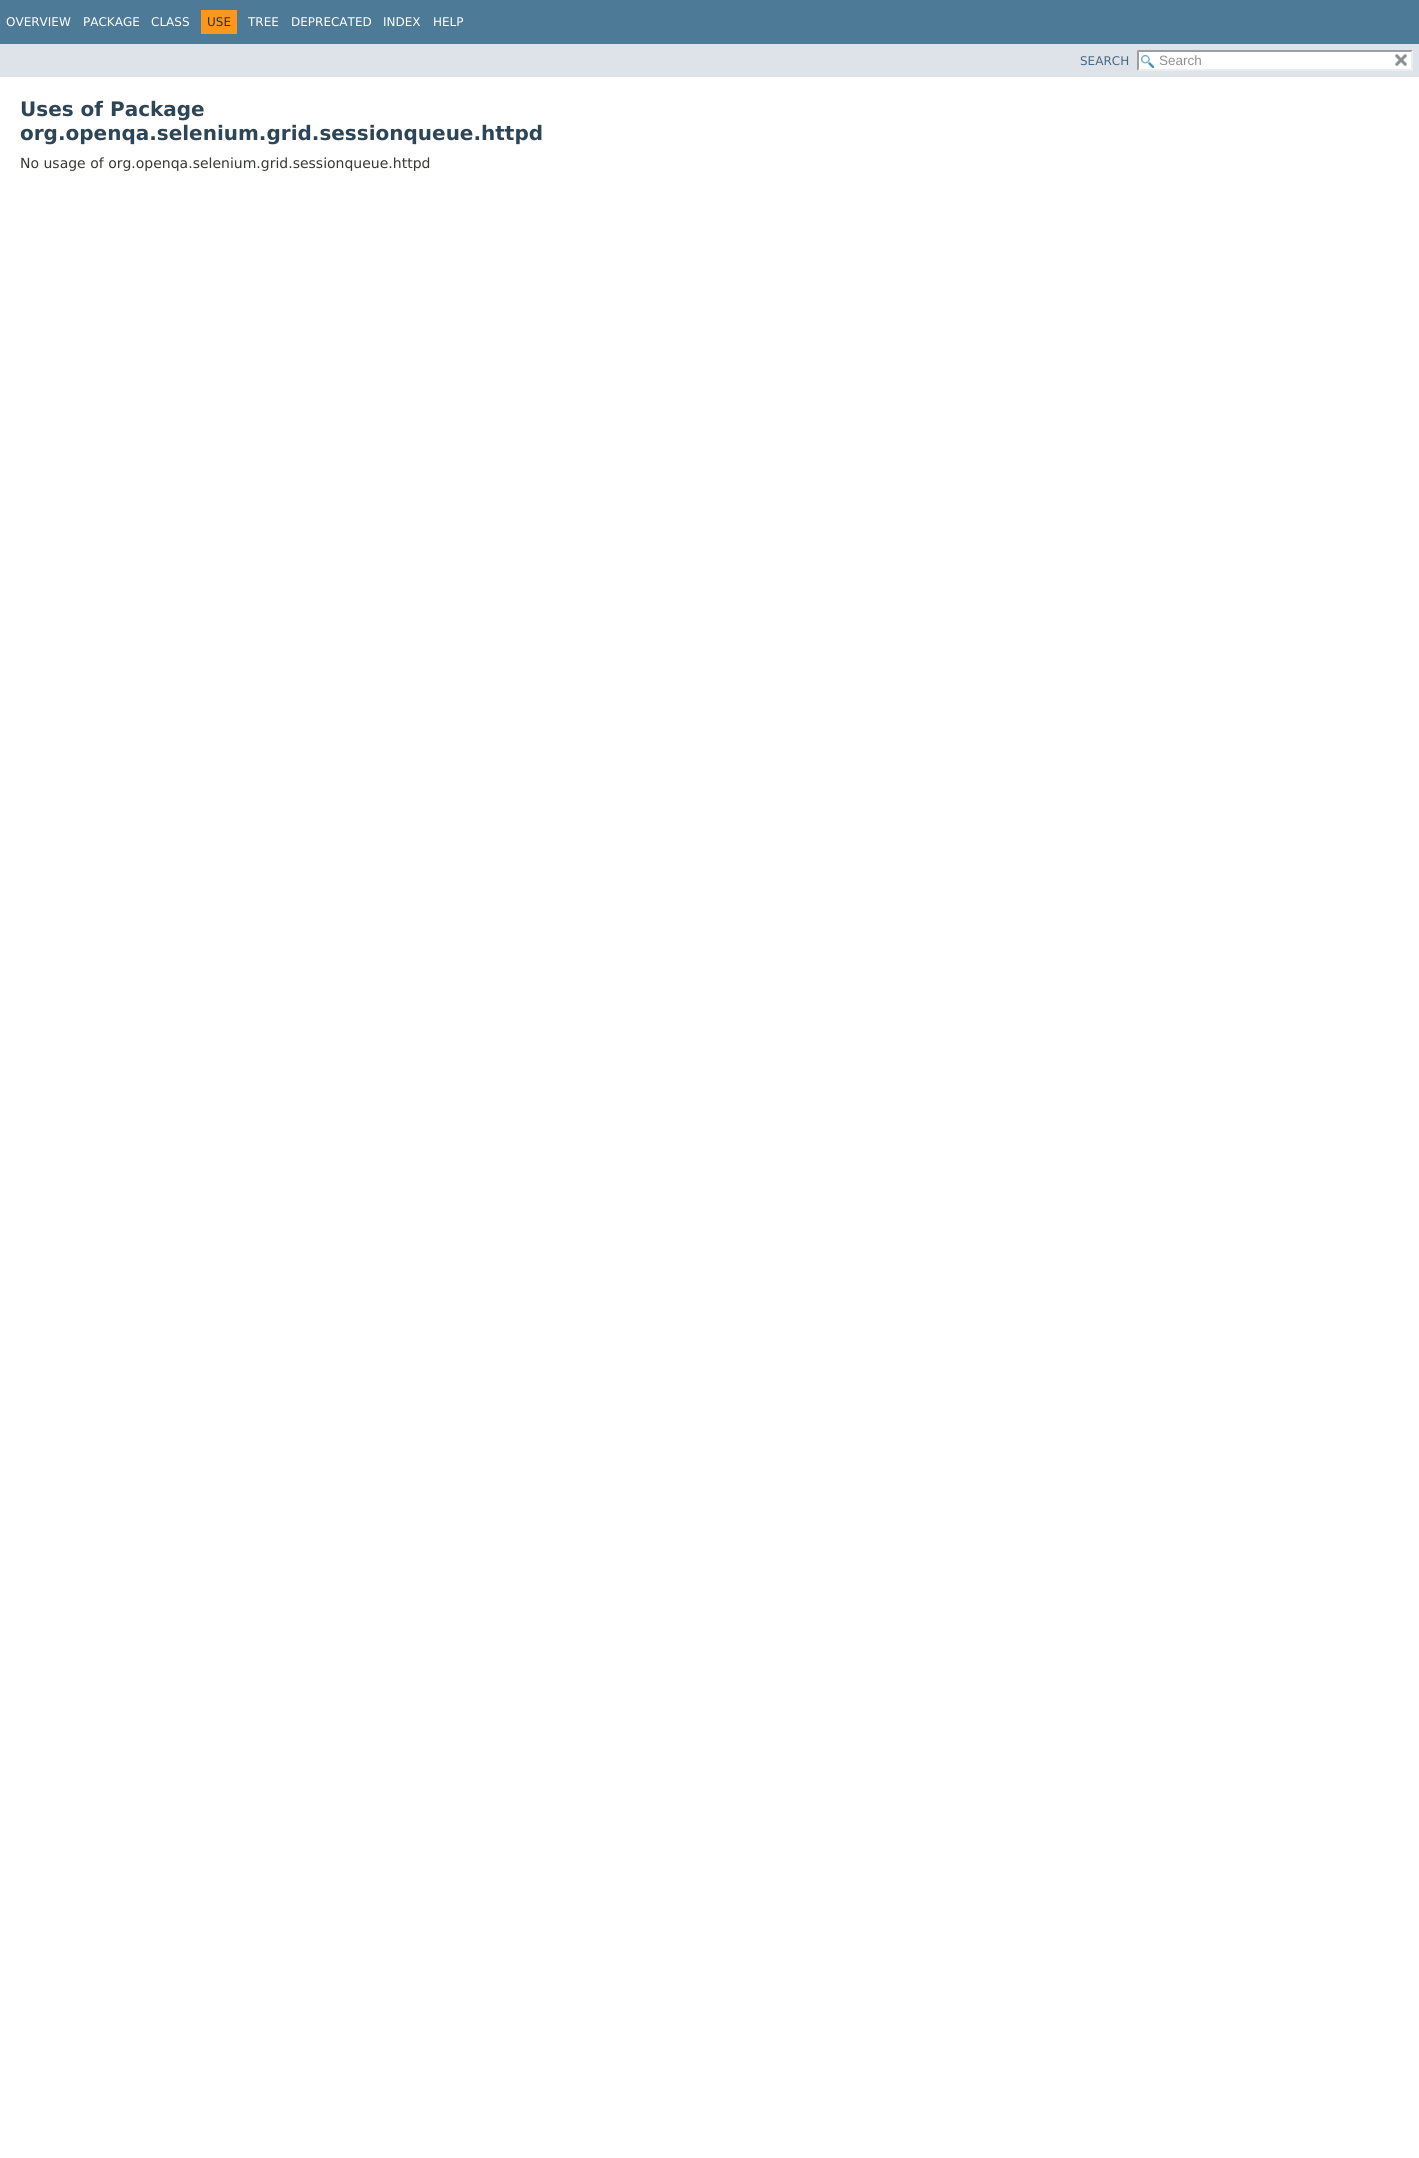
#include <cairo.h>
#include <math.h>
#include <stddef.h>


static void picture(cairo_t *cr, const char *path, double x, double y, double w, double h) {
    cairo_surface_t *image = cairo_image_surface_create_from_png(path);
    cairo_save(cr);
    cairo_set_source_surface(cr, image, x, y);
    cairo_rectangle(cr, x, y, w, h);
    cairo_fill(cr);
    cairo_restore(cr);
    cairo_surface_destroy(image);
}

int main(void) {
    cairo_surface_t *surface = cairo_image_surface_create(CAIRO_FORMAT_RGB24, 1419, 2158);
    cairo_t *cr = cairo_create(surface);
    cairo_font_options_t *options = cairo_font_options_create();
    cairo_font_options_set_hint_metrics(options, CAIRO_HINT_METRICS_OFF);
    cairo_font_options_set_hint_style(options, CAIRO_HINT_STYLE_NONE);
    cairo_set_font_options(cr, options);
    cairo_set_miter_limit(cr, 4);
    cairo_set_source_rgb(cr, 1, 1, 1);
    cairo_paint(cr);
    cairo_set_source_rgb(cr, 0.302, 0.478, 0.592);
    cairo_rectangle(cr, 0, 0, 1419, 44);
    cairo_fill(cr);
    cairo_select_font_face(cr, "DejaVu Sans", CAIRO_FONT_SLANT_NORMAL, CAIRO_FONT_WEIGHT_NORMAL);
    cairo_set_font_size(cr, 12);
    cairo_set_source_rgb(cr, 1, 1, 1);
    cairo_move_to(cr, 6, 26);
    cairo_show_text(cr, "OVERVIEW");
    cairo_move_to(cr, 83, 26);
    cairo_show_text(cr, "PACKAGE");
    cairo_move_to(cr, 151, 26);
    cairo_show_text(cr, "CLASS");
    cairo_set_source_rgb(cr, 0.973, 0.596, 0.114);
    cairo_rectangle(cr, 201, 10, 36, 24);
    cairo_fill(cr);
    cairo_set_source_rgb(cr, 0.145, 0.204, 0.255);
    cairo_move_to(cr, 207, 26);
    cairo_show_text(cr, "USE");
    cairo_set_source_rgb(cr, 1, 1, 1);
    cairo_move_to(cr, 248, 26);
    cairo_show_text(cr, "TREE");
    cairo_move_to(cr, 291, 26);
    cairo_show_text(cr, "DEPRECATED");
    cairo_move_to(cr, 383, 26);
    cairo_show_text(cr, "INDEX");
    cairo_move_to(cr, 433, 26);
    cairo_show_text(cr, "HELP");
    cairo_set_source_rgb(cr, 0.871, 0.89, 0.914);
    cairo_rectangle(cr, 0, 44, 1419, 33);
    cairo_fill(cr);
    cairo_set_source_rgb(cr, 0.29, 0.404, 0.51);
    cairo_move_to(cr, 1080, 65);
    cairo_show_text(cr, "SEARCH");
    cairo_set_source_rgb(cr, 1, 1, 1);
    cairo_rectangle(cr, 1137, 50, 276, 21);
    cairo_fill(cr);
    picture(cr, "img1.png", 1141, 55, 13, 13);
    cairo_set_source_rgb(cr, 0.62, 0.62, 0.62);
    cairo_new_path(cr);
    cairo_move_to(cr, 1137, 50);
    cairo_line_to(cr, 1413, 50);
    cairo_line_to(cr, 1411, 52);
    cairo_line_to(cr, 1139, 52);
    cairo_close_path(cr);
    cairo_fill(cr);
    cairo_set_source_rgb(cr, 0.929, 0.929, 0.929);
    cairo_new_path(cr);
    cairo_move_to(cr, 1413, 50);
    cairo_line_to(cr, 1413, 71);
    cairo_line_to(cr, 1411, 69);
    cairo_line_to(cr, 1411, 52);
    cairo_close_path(cr);
    cairo_fill(cr);
    cairo_new_path(cr);
    cairo_move_to(cr, 1413, 71);
    cairo_line_to(cr, 1137, 71);
    cairo_line_to(cr, 1139, 69);
    cairo_line_to(cr, 1411, 69);
    cairo_close_path(cr);
    cairo_fill(cr);
    cairo_set_source_rgb(cr, 0.62, 0.62, 0.62);
    cairo_new_path(cr);
    cairo_move_to(cr, 1137, 71);
    cairo_line_to(cr, 1137, 50);
    cairo_line_to(cr, 1139, 52);
    cairo_line_to(cr, 1139, 69);
    cairo_close_path(cr);
    cairo_fill(cr);
    cairo_select_font_face(cr, "Liberation Sans", CAIRO_FONT_SLANT_NORMAL, CAIRO_FONT_WEIGHT_NORMAL);
    cairo_set_font_size(cr, 13.5);
    cairo_set_source_rgb(cr, 0.565, 0.565, 0.565);
    cairo_move_to(cr, 1159, 65);
    cairo_show_text(cr, "Search");
    picture(cr, "img2.png", 1395, 53, 12, 13);
    cairo_select_font_face(cr, "DejaVu Sans", CAIRO_FONT_SLANT_NORMAL, CAIRO_FONT_WEIGHT_BOLD);
    cairo_set_font_size(cr, 20);
    cairo_set_source_rgb(cr, 0.173, 0.271, 0.341);
    cairo_move_to(cr, 20, 116);
    cairo_show_text(cr, "Uses of Package");
    cairo_move_to(cr, 20, 140);
    cairo_show_text(cr, "org.openqa.selenium.grid.sessionqueue.httpd");
    cairo_select_font_face(cr, "DejaVu Sans", CAIRO_FONT_SLANT_NORMAL, CAIRO_FONT_WEIGHT_NORMAL);
    cairo_set_font_size(cr, 14);
    cairo_set_source_rgb(cr, 0.208, 0.22, 0.2);
    cairo_move_to(cr, 20, 168);
    cairo_show_text(cr, "No usage of org.openqa.selenium.grid.sessionqueue.httpd");
    cairo_surface_write_to_png(surface, "page.png");
    cairo_font_options_destroy(options);
    cairo_destroy(cr);
    cairo_surface_destroy(surface);
    return 0;
}
